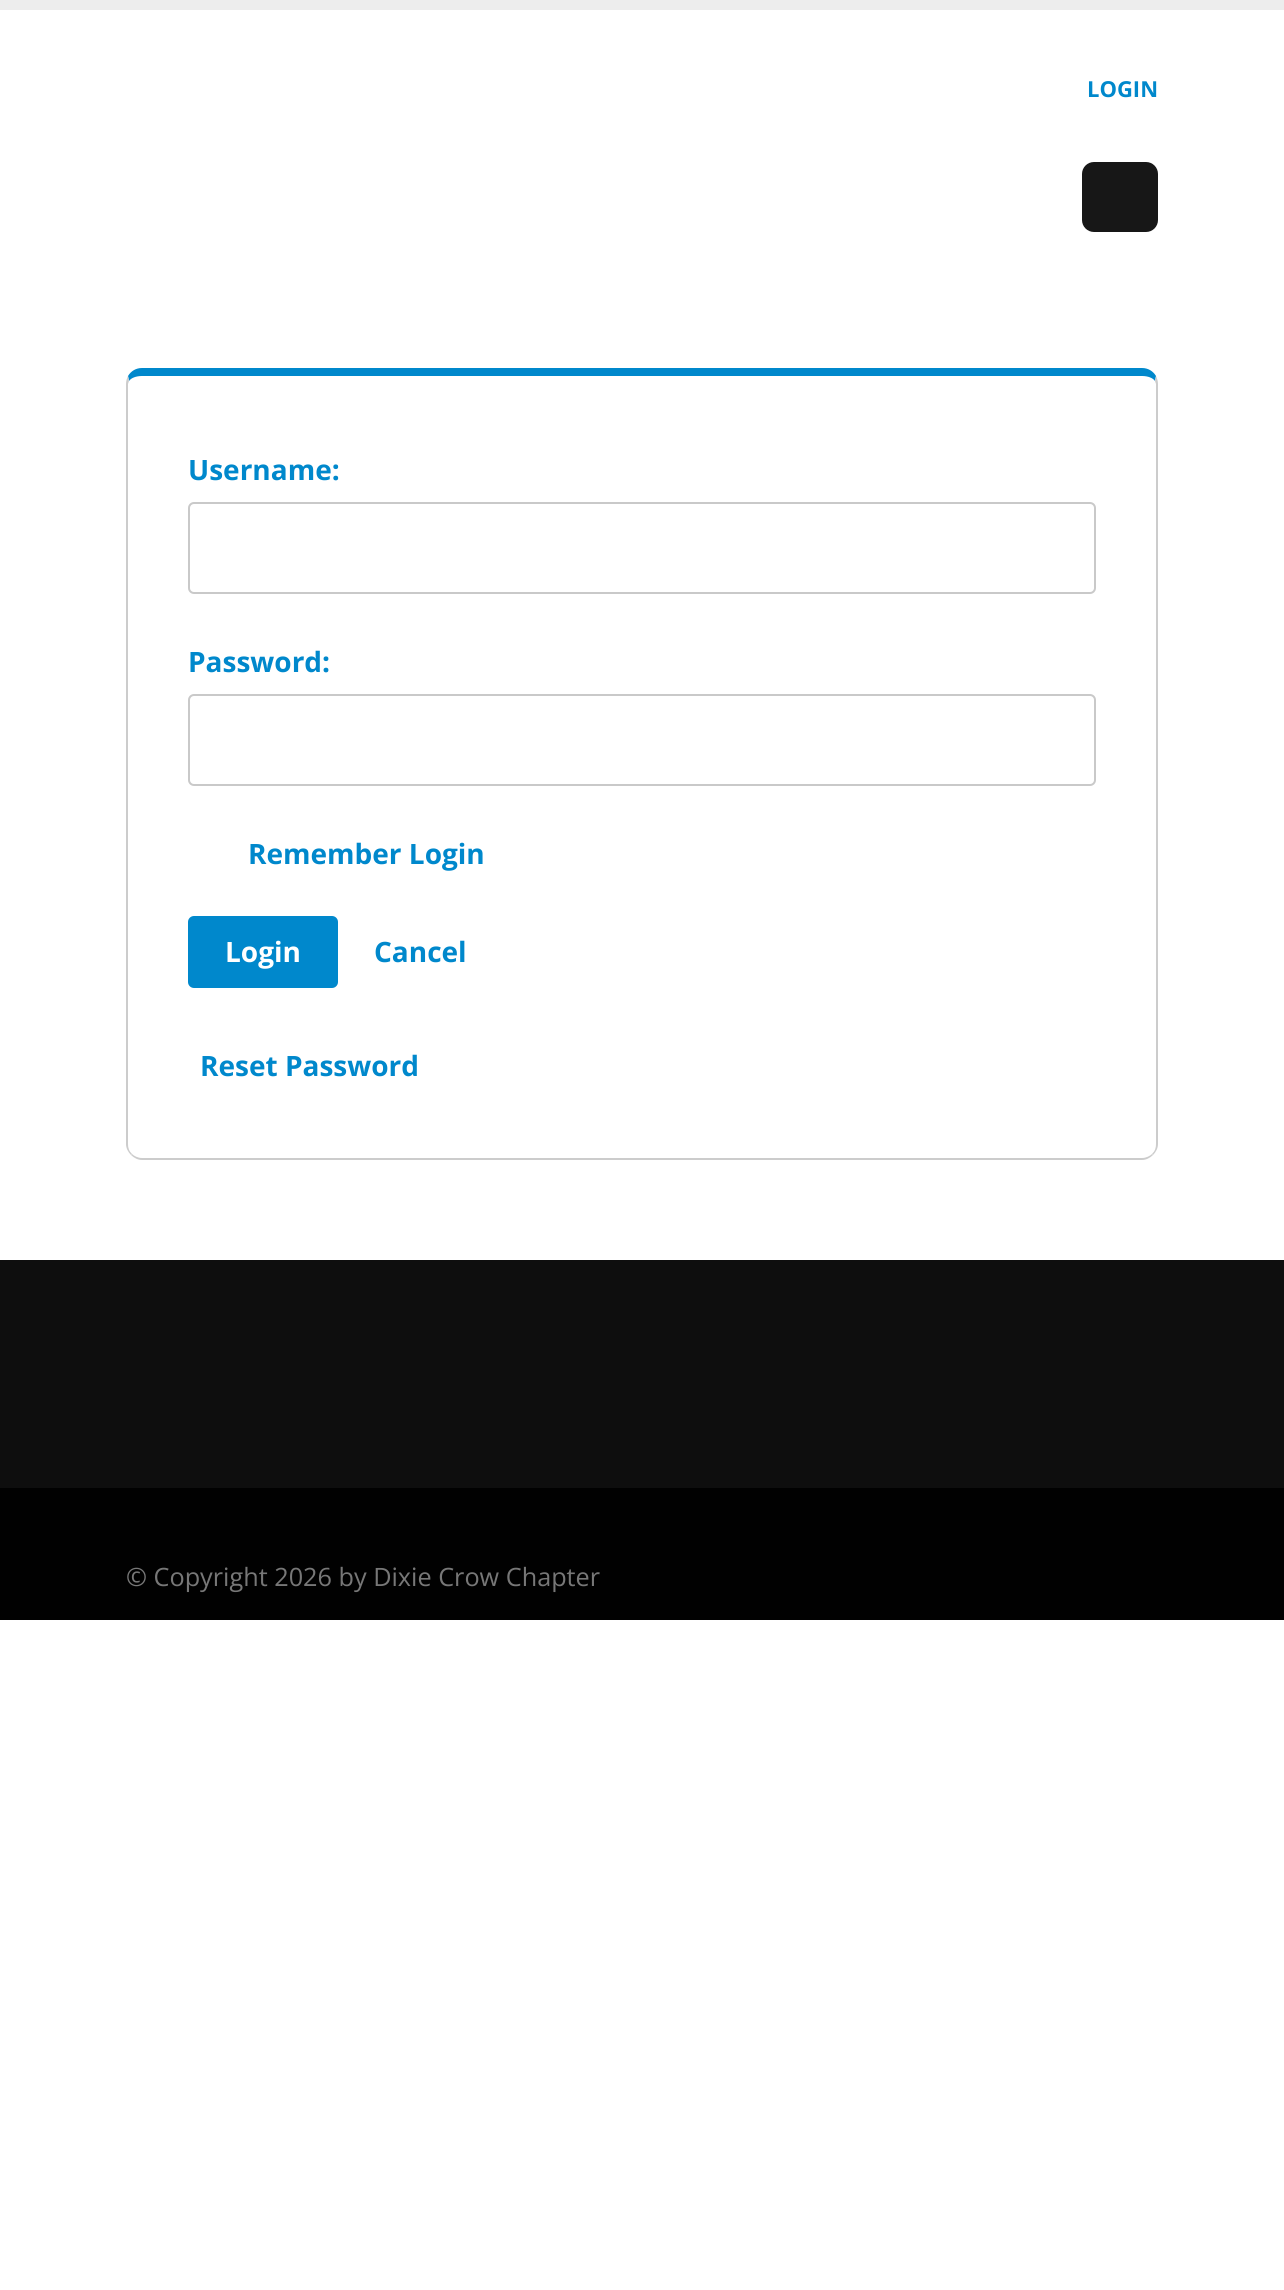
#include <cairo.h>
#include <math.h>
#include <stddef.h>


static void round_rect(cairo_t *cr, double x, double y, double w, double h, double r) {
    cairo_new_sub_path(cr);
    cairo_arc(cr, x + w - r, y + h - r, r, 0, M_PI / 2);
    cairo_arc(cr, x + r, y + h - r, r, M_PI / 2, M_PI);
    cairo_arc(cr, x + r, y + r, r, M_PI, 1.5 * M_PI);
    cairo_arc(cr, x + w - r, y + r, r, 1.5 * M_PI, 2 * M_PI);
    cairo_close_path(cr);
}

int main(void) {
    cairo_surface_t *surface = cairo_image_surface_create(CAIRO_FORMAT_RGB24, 1284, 2290);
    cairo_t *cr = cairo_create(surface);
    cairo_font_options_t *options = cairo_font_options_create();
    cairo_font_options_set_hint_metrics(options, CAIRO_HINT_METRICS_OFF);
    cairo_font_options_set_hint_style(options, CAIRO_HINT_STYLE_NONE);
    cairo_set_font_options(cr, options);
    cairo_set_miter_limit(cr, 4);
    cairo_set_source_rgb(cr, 1, 1, 1);
    cairo_paint(cr);
    cairo_set_source_rgb(cr, 0.929, 0.929, 0.929);
    cairo_rectangle(cr, 0, 0, 1284, 10);
    cairo_fill(cr);
    cairo_select_font_face(cr, "Open Sans", CAIRO_FONT_SLANT_NORMAL, CAIRO_FONT_WEIGHT_BOLD);
    cairo_set_font_size(cr, 22);
    cairo_set_source_rgb(cr, 0, 0.533, 0.8);
    cairo_move_to(cr, 1087, 97);
    cairo_show_text(cr, "LOGIN");
    cairo_set_source_rgb(cr, 0.09, 0.09, 0.09);
    round_rect(cr, 1082, 162, 76, 70, 12);
    cairo_fill(cr);
    cairo_set_source_rgb(cr, 0, 0.533, 0.8);
    cairo_new_path(cr);
    cairo_move_to(cr, 142, 368);
    cairo_curve_to(cr, 136, 368, 131, 371, 128, 376);
    cairo_line_to(cr, 129, 381);
    cairo_curve_to(cr, 131, 378, 136, 376, 142, 376);
    cairo_line_to(cr, 1142, 376);
    cairo_curve_to(cr, 1148, 376, 1153, 378, 1155, 381);
    cairo_line_to(cr, 1156, 376);
    cairo_curve_to(cr, 1153, 371, 1148, 368, 1142, 368);
    cairo_close_path(cr);
    cairo_fill(cr);
    cairo_set_source_rgb(cr, 0.8, 0.8, 0.8);
    cairo_new_path(cr);
    cairo_move_to(cr, 1158, 1144);
    cairo_line_to(cr, 1158, 384);
    cairo_curve_to(cr, 1158, 381, 1157, 378, 1156, 376);
    cairo_line_to(cr, 1155, 381);
    cairo_line_to(cr, 1156, 384);
    cairo_line_to(cr, 1156, 1144);
    cairo_curve_to(cr, 1156, 1148, 1155, 1151, 1152, 1154);
    cairo_line_to(cr, 1153, 1155);
    cairo_curve_to(cr, 1156, 1152, 1158, 1148, 1158, 1144);
    cairo_close_path(cr);
    cairo_fill(cr);
    cairo_new_path(cr);
    cairo_move_to(cr, 142, 1160);
    cairo_line_to(cr, 1142, 1160);
    cairo_curve_to(cr, 1146, 1160, 1150, 1158, 1153, 1155);
    cairo_line_to(cr, 1152, 1154);
    cairo_curve_to(cr, 1150, 1156, 1146, 1158, 1142, 1158);
    cairo_line_to(cr, 142, 1158);
    cairo_curve_to(cr, 138, 1158, 134, 1156, 132, 1154);
    cairo_line_to(cr, 131, 1155);
    cairo_curve_to(cr, 134, 1158, 138, 1160, 142, 1160);
    cairo_close_path(cr);
    cairo_fill(cr);
    cairo_new_path(cr);
    cairo_move_to(cr, 126, 384);
    cairo_line_to(cr, 126, 1144);
    cairo_curve_to(cr, 126, 1148, 128, 1152, 131, 1155);
    cairo_line_to(cr, 132, 1154);
    cairo_curve_to(cr, 129, 1151, 128, 1148, 128, 1144);
    cairo_line_to(cr, 128, 384);
    cairo_line_to(cr, 129, 381);
    cairo_line_to(cr, 128, 376);
    cairo_curve_to(cr, 127, 378, 126, 381, 126, 384);
    cairo_close_path(cr);
    cairo_fill(cr);
    cairo_set_font_size(cr, 28);
    cairo_set_source_rgb(cr, 0, 0.533, 0.8);
    cairo_move_to(cr, 188, 480);
    cairo_show_text(cr, "Username:");
    round_rect(cr, 189, 503, 906, 90, 5);
    cairo_set_source_rgb(cr, 0.788, 0.788, 0.788);
    cairo_stroke(cr);
    cairo_set_source_rgb(cr, 0, 0.533, 0.8);
    cairo_move_to(cr, 188, 672);
    cairo_show_text(cr, "Password:");
    round_rect(cr, 189, 695, 906, 90, 5);
    cairo_set_source_rgb(cr, 0.788, 0.788, 0.788);
    cairo_stroke(cr);
    cairo_set_source_rgb(cr, 0, 0.533, 0.8);
    cairo_move_to(cr, 248, 864);
    cairo_show_text(cr, "Remember Login");
    round_rect(cr, 189, 917, 148, 70, 5);
    cairo_fill_preserve(cr);
    cairo_stroke(cr);
    cairo_set_source_rgb(cr, 1, 1, 1);
    cairo_move_to(cr, 225, 962);
    cairo_show_text(cr, "Login");
    cairo_set_source_rgb(cr, 0, 0.533, 0.8);
    cairo_move_to(cr, 374, 962);
    cairo_show_text(cr, "Cancel");
    cairo_move_to(cr, 200, 1076);
    cairo_show_text(cr, "Reset Password");
    cairo_set_source_rgb(cr, 0.055, 0.055, 0.055);
    cairo_rectangle(cr, 0, 1260, 1284, 228);
    cairo_fill(cr);
    cairo_set_source_rgb(cr, 0.004, 0.004, 0.004);
    cairo_rectangle(cr, 0, 1488, 1284, 132);
    cairo_fill(cr);
    cairo_select_font_face(cr, "Open Sans", CAIRO_FONT_SLANT_NORMAL, CAIRO_FONT_WEIGHT_NORMAL);
    cairo_set_font_size(cr, 25.25);
    cairo_set_source_rgb(cr, 0.467, 0.467, 0.467);
    cairo_move_to(cr, 126, 1586);
    cairo_show_text(cr, "© Copyright 2026 by Dixie Crow Chapter");
    cairo_surface_write_to_png(surface, "page.png");
    cairo_font_options_destroy(options);
    cairo_destroy(cr);
    cairo_surface_destroy(surface);
    return 0;
}
